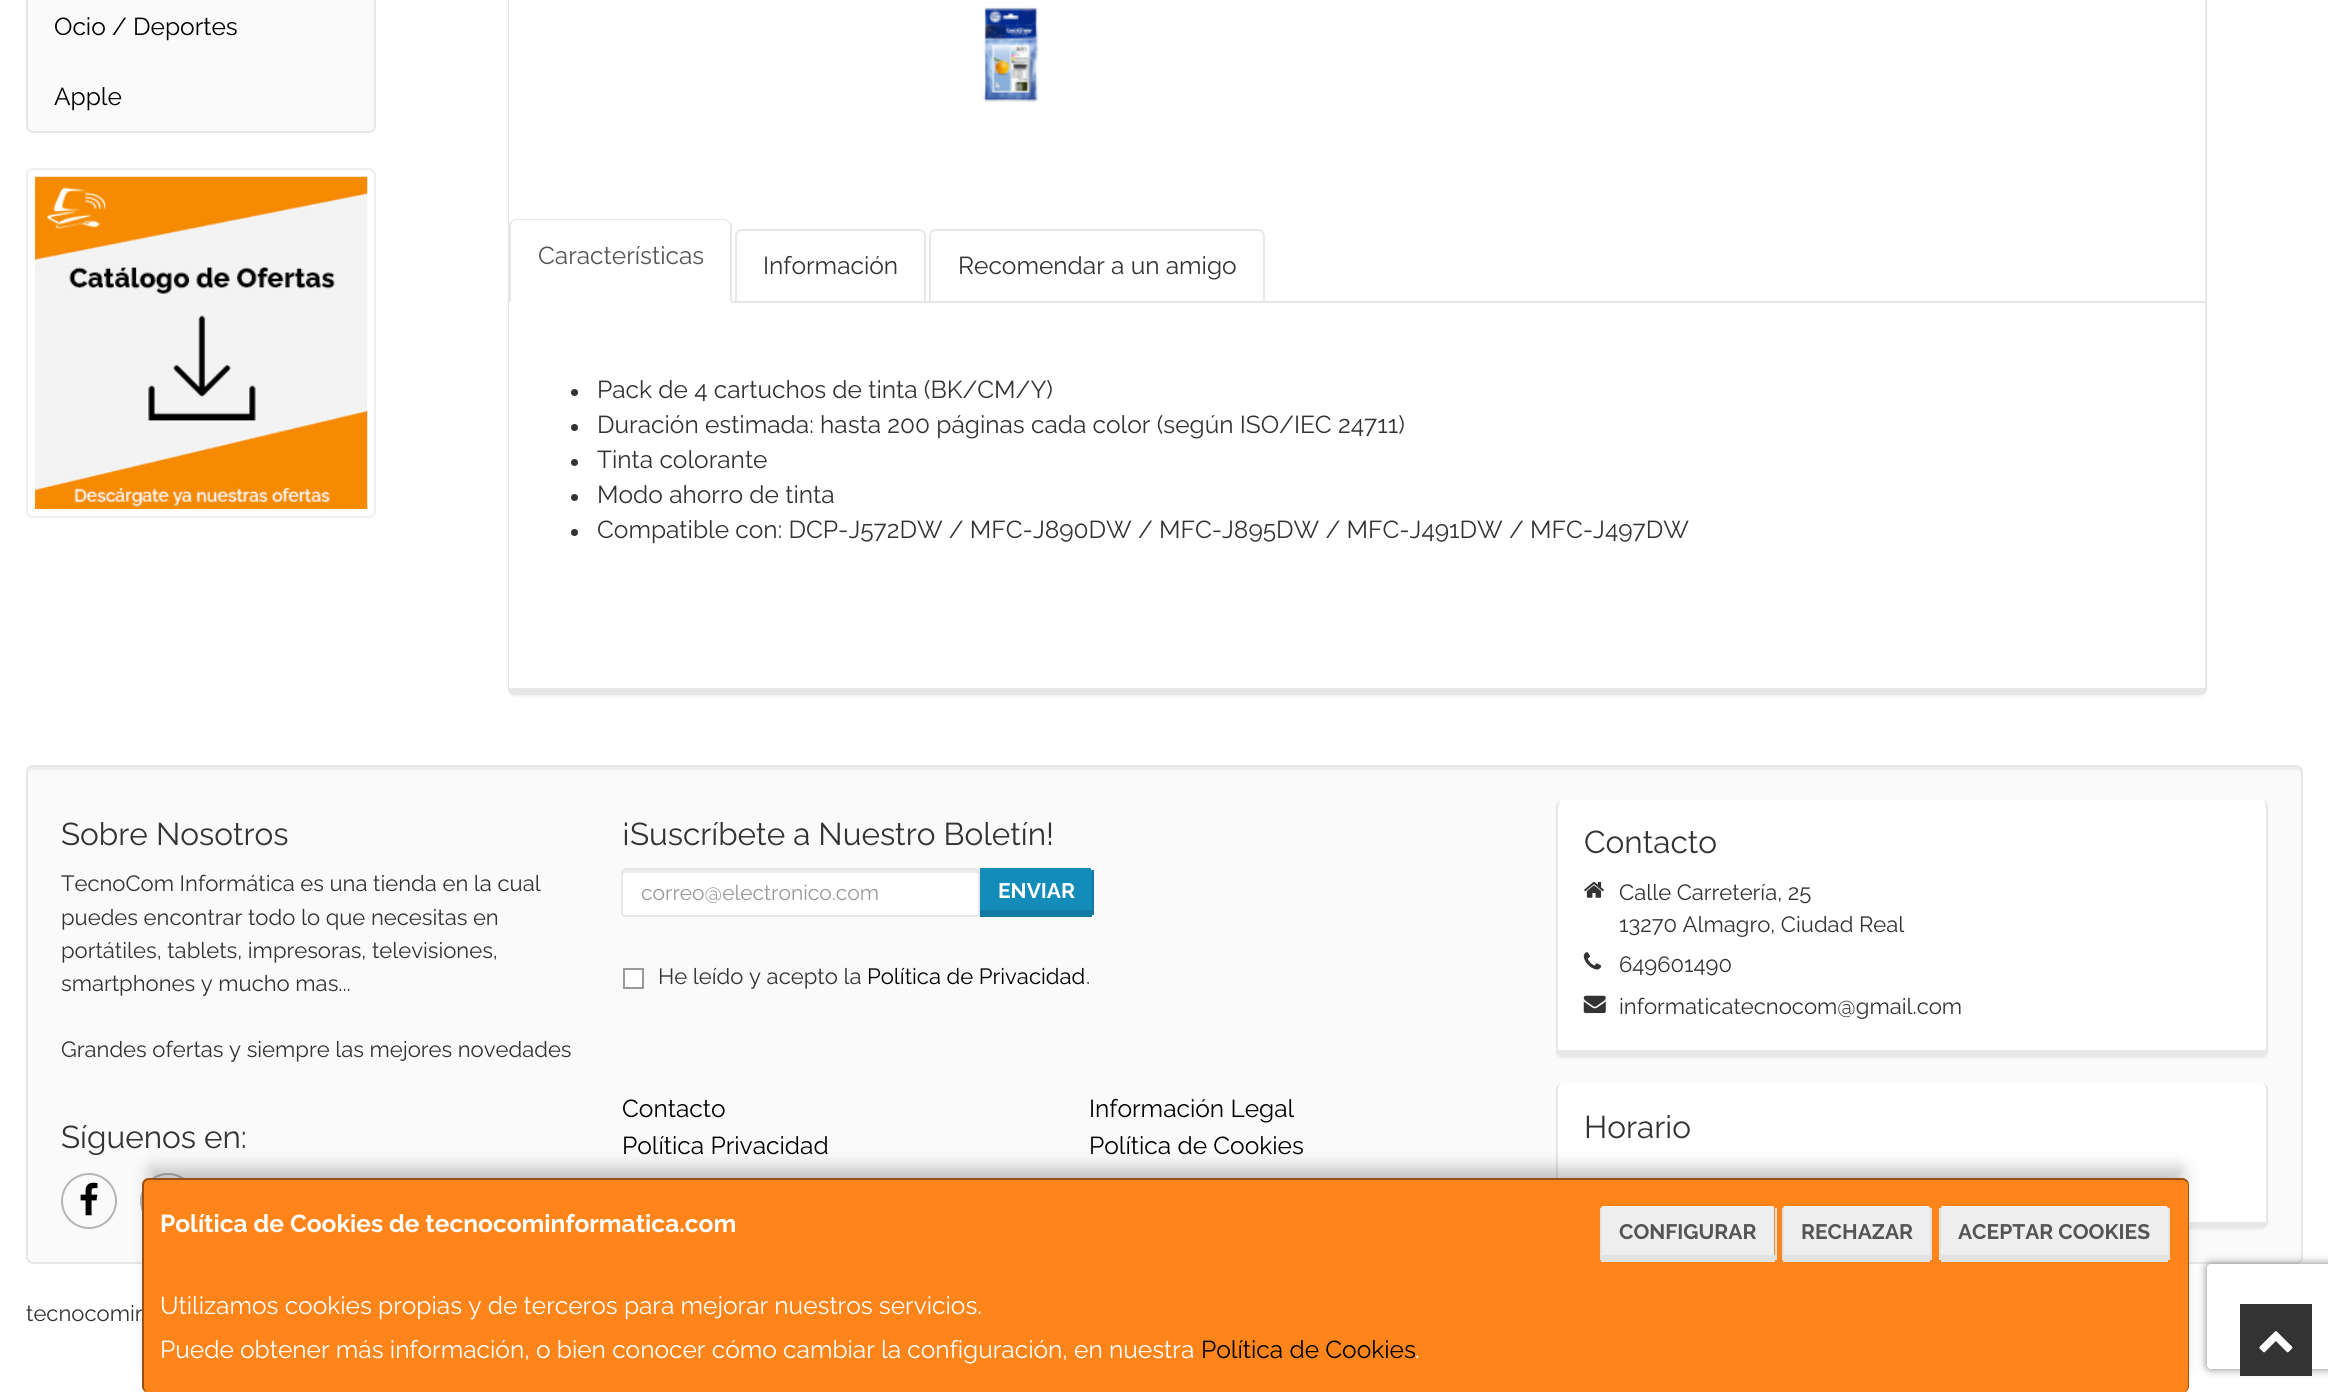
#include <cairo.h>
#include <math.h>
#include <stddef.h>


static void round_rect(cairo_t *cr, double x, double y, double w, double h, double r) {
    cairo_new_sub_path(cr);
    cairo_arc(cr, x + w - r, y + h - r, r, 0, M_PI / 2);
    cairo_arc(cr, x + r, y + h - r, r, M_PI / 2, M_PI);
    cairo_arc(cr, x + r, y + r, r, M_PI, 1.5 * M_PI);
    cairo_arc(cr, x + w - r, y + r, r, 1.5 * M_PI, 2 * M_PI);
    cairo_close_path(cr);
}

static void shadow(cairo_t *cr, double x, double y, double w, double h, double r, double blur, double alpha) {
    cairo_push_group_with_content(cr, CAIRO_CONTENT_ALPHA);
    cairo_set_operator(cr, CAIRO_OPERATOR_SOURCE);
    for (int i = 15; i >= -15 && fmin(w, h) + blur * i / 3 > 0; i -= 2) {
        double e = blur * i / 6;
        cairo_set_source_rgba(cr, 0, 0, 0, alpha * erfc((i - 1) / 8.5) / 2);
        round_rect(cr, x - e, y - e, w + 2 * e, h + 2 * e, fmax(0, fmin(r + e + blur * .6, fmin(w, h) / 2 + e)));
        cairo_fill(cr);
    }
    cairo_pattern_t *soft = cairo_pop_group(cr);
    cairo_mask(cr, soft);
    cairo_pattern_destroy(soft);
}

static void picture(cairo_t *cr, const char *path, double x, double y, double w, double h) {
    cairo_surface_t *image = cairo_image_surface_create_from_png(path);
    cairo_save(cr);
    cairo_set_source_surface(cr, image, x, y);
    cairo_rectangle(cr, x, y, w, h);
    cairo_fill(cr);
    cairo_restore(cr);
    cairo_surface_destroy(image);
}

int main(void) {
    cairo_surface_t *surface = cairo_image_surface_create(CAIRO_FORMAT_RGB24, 2328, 1392);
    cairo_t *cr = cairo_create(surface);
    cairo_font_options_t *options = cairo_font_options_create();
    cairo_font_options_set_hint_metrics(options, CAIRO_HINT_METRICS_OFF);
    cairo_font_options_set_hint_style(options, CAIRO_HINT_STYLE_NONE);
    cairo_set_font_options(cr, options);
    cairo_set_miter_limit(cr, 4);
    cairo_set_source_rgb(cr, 1, 1, 1);
    cairo_paint(cr);
    cairo_set_source_rgb(cr, 0.98, 0.98, 0.98);
    round_rect(cr, 27, -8, 348, 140, 6);
    cairo_fill_preserve(cr);
    cairo_set_source_rgb(cr, 0.906, 0.906, 0.906);
    cairo_stroke(cr);
    cairo_select_font_face(cr, "Raleway", CAIRO_FONT_SLANT_NORMAL, CAIRO_FONT_WEIGHT_NORMAL);
    cairo_set_font_size(cr, 24.5);
    cairo_set_source_rgb(cr, 0, 0, 0);
    cairo_move_to(cr, 54, 35);
    cairo_show_text(cr, "Ocio / Deportes");
    cairo_move_to(cr, 54, 105);
    cairo_show_text(cr, "Apple");
    round_rect(cr, 27, 169, 348, 348, 6);
    cairo_set_source_rgb(cr, 0.933, 0.933, 0.933);
    cairo_stroke(cr);
    picture(cr, "img1.png", 35, 176, 333, 333);
    cairo_save(cr);
    cairo_set_fill_rule(cr, CAIRO_FILL_RULE_EVEN_ODD);
    cairo_new_path(cr);
    cairo_move_to(cr, 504, 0);
    cairo_line_to(cr, 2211, 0);
    cairo_line_to(cr, 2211, 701);
    cairo_line_to(cr, 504, 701);
    cairo_close_path(cr);
    cairo_move_to(cr, 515, -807);
    cairo_line_to(cr, 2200, -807);
    cairo_curve_to(cr, 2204, -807, 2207, -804, 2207, -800);
    cairo_line_to(cr, 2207, 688);
    cairo_curve_to(cr, 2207, 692, 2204, 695, 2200, 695);
    cairo_line_to(cr, 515, 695);
    cairo_curve_to(cr, 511, 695, 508, 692, 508, 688);
    cairo_line_to(cr, 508, -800);
    cairo_curve_to(cr, 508, -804, 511, -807, 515, -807);
    cairo_close_path(cr);
    cairo_clip(cr);
    cairo_set_source_rgb(cr, 0, 0, 0);
    shadow(cr, 508, -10, 1699, 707, 7, 1, 0.05);
    cairo_restore(cr);
    cairo_set_source_rgb(cr, 0.906, 0.906, 0.906);
    cairo_set_fill_rule(cr, CAIRO_FILL_RULE_EVEN_ODD);
    cairo_new_path(cr);
    cairo_move_to(cr, 514, -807);
    cairo_line_to(cr, 2200, -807);
    cairo_curve_to(cr, 2204, -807, 2207, -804, 2207, -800);
    cairo_line_to(cr, 2207, 688);
    cairo_curve_to(cr, 2207, 692, 2204, 695, 2200, 695);
    cairo_line_to(cr, 514, 695);
    cairo_curve_to(cr, 511, 695, 508, 692, 508, 688);
    cairo_line_to(cr, 508, -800);
    cairo_curve_to(cr, 508, -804, 511, -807, 514, -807);
    cairo_close_path(cr);
    cairo_move_to(cr, 514, -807);
    cairo_line_to(cr, 2200, -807);
    cairo_curve_to(cr, 2203, -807, 2205, -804, 2205, -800);
    cairo_line_to(cr, 2205, 688);
    cairo_line_to(cr, 509, 688);
    cairo_line_to(cr, 509, -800);
    cairo_curve_to(cr, 509, -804, 512, -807, 514, -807);
    cairo_close_path(cr);
    cairo_fill(cr);
    picture(cr, "img2.png", 983, 6, 56, 96);
    cairo_rectangle(cr, 732, 301, 1473, 2);
    cairo_fill(cr);
    cairo_set_fill_rule(cr, CAIRO_FILL_RULE_WINDING);
    cairo_new_path(cr);
    cairo_move_to(cr, 516, 219);
    cairo_curve_to(cr, 514, 219, 512, 220, 511, 221);
    cairo_line_to(cr, 512, 222);
    cairo_curve_to(cr, 513, 221, 515, 220, 516, 220);
    cairo_line_to(cr, 725, 220);
    cairo_line_to(cr, 728, 222);
    cairo_line_to(cr, 729, 221);
    cairo_curve_to(cr, 728, 220, 726, 219, 724, 219);
    cairo_close_path(cr);
    cairo_fill(cr);
    cairo_new_path(cr);
    cairo_move_to(cr, 729, 221);
    cairo_line_to(cr, 732, 224);
    cairo_line_to(cr, 732, 303);
    cairo_line_to(cr, 730, 301);
    cairo_line_to(cr, 730, 225);
    cairo_line_to(cr, 728, 222);
    cairo_close_path(cr);
    cairo_fill(cr);
    cairo_new_path(cr);
    cairo_move_to(cr, 509, 303);
    cairo_line_to(cr, 511, 301);
    cairo_line_to(cr, 511, 226);
    cairo_curve_to(cr, 511, 224, 512, 223, 512, 222);
    cairo_line_to(cr, 511, 221);
    cairo_line_to(cr, 509, 224);
    cairo_close_path(cr);
    cairo_fill(cr);
    cairo_set_source_rgb(cr, 0.333, 0.333, 0.333);
    cairo_move_to(cr, 538, 264);
    cairo_show_text(cr, "Características");
    cairo_new_path(cr);
    cairo_move_to(cr, 742, 230);
    cairo_line_to(cr, 919, 230);
    cairo_curve_to(cr, 922.5, 230, 925, 232.5, 925, 236);
    cairo_line_to(cr, 925, 302);
    cairo_line_to(cr, 736, 302);
    cairo_line_to(cr, 736, 236);
    cairo_curve_to(cr, 736, 232.5, 738.5, 230, 742, 230);
    cairo_close_path(cr);
    cairo_set_source_rgb(cr, 0.906, 0.906, 0.906);
    cairo_stroke(cr);
    cairo_set_source_rgb(cr, 0.2, 0.2, 0.2);
    cairo_move_to(cr, 763, 274);
    cairo_show_text(cr, "Información");
    cairo_new_path(cr);
    cairo_move_to(cr, 936, 230);
    cairo_line_to(cr, 1258, 230);
    cairo_curve_to(cr, 1261.5, 230, 1264, 232.5, 1264, 236);
    cairo_line_to(cr, 1264, 302);
    cairo_line_to(cr, 930, 302);
    cairo_line_to(cr, 930, 236);
    cairo_curve_to(cr, 930, 232.5, 932.5, 230, 936, 230);
    cairo_close_path(cr);
    cairo_set_source_rgb(cr, 0.906, 0.906, 0.906);
    cairo_stroke(cr);
    cairo_set_source_rgb(cr, 0.2, 0.2, 0.2);
    cairo_move_to(cr, 958, 274);
    cairo_show_text(cr, "Recomendar a un amigo");
    cairo_new_path(cr);
    cairo_arc(cr, 574.5, 392.5, 3.5, 0, 2 * M_PI);
    cairo_fill(cr);
    cairo_move_to(cr, 597, 398);
    cairo_show_text(cr, "Pack de 4 cartuchos de tinta (BK/CM/Y)");
    cairo_new_path(cr);
    cairo_arc(cr, 574.5, 427.5, 3.5, 0, 2 * M_PI);
    cairo_fill(cr);
    cairo_move_to(cr, 597, 433);
    cairo_show_text(cr, "Duración estimada: hasta 200 páginas cada color (según ISO/IEC 24711)");
    cairo_new_path(cr);
    cairo_arc(cr, 574.5, 462.5, 3.5, 0, 2 * M_PI);
    cairo_fill(cr);
    cairo_move_to(cr, 597, 468);
    cairo_show_text(cr, "Tinta colorante");
    cairo_new_path(cr);
    cairo_arc(cr, 574.5, 497.5, 3.5, 0, 2 * M_PI);
    cairo_fill(cr);
    cairo_move_to(cr, 597, 503);
    cairo_show_text(cr, "Modo ahorro de tinta");
    cairo_new_path(cr);
    cairo_arc(cr, 574.5, 532.5, 3.5, 0, 2 * M_PI);
    cairo_fill(cr);
    cairo_move_to(cr, 597, 538);
    cairo_show_text(cr, "Compatible con: DCP-J572DW / MFC-J890DW / MFC-J895DW / MFC-J491DW / MFC-J497DW");
    cairo_set_source_rgb(cr, 0.98, 0.98, 0.98);
    round_rect(cr, 26, 765, 2277, 499, 7);
    cairo_fill(cr);
    cairo_set_source_rgb(cr, 0.933, 0.933, 0.933);
    cairo_new_path(cr);
    cairo_move_to(cr, 33, 770);
    cairo_line_to(cr, 2296, 770);
    cairo_curve_to(cr, 2299, 770, 2301, 772, 2301, 775);
    cairo_curve_to(cr, 2301, 771, 2301, 767, 2296, 767);
    cairo_line_to(cr, 33, 767);
    cairo_curve_to(cr, 28, 767, 28, 771, 28, 775);
    cairo_curve_to(cr, 28, 772, 30, 770, 33, 770);
    cairo_close_path(cr);
    cairo_fill(cr);
    round_rect(cr, 27, 766, 2275, 497, 6);
    cairo_set_source_rgb(cr, 0.906, 0.906, 0.906);
    cairo_stroke(cr);
    cairo_set_font_size(cr, 31.5);
    cairo_set_source_rgb(cr, 0.2, 0.2, 0.2);
    cairo_move_to(cr, 61, 845);
    cairo_show_text(cr, "Sobre Nosotros");
    cairo_set_font_size(cr, 22.05);
    cairo_move_to(cr, 61, 891);
    cairo_show_text(cr, "TecnoCom Informática es una tienda en la cual");
    cairo_move_to(cr, 61, 925);
    cairo_show_text(cr, "puedes encontrar todo lo que necesitas en");
    cairo_move_to(cr, 61, 958);
    cairo_show_text(cr, "portátiles, tablets, impresoras, televisiones,");
    cairo_move_to(cr, 61, 991);
    cairo_show_text(cr, "smartphones y mucho mas...");
    cairo_move_to(cr, 61, 1057);
    cairo_show_text(cr, "Grandes ofertas y siempre las mejores novedades");
    cairo_set_font_size(cr, 31.5);
    cairo_move_to(cr, 61, 1148);
    cairo_show_text(cr, "Síguenos en:");
    cairo_new_path(cr);
    cairo_arc(cr, 89, 1201, 27, 0, 2 * M_PI);
    cairo_set_source_rgb(cr, 0.71, 0.71, 0.71);
    cairo_stroke(cr);
    picture(cr, "img3.png", 80, 1182, 18, 34);
    cairo_arc(cr, 168, 1201, 27, 0, 2 * M_PI);
    cairo_stroke(cr);
    cairo_set_source_rgb(cr, 0.2, 0.2, 0.2);
    cairo_move_to(cr, 622, 845);
    cairo_show_text(cr, "¡Suscríbete a Nuestro Boletín!");
    cairo_set_source_rgb(cr, 0.071, 0.482, 0.639);
    cairo_rectangle(cr, 978, 910, 114, 7);
    cairo_fill(cr);
    cairo_set_source_rgb(cr, 1, 1, 1);
    cairo_new_path(cr);
    cairo_move_to(cr, 625, 868);
    cairo_line_to(cr, 980, 868);
    cairo_line_to(cr, 980, 917);
    cairo_line_to(cr, 625, 917);
    cairo_curve_to(cr, 623, 917, 621, 915, 621, 913);
    cairo_line_to(cr, 621, 872);
    cairo_curve_to(cr, 621, 870, 623, 868, 625, 868);
    cairo_close_path(cr);
    cairo_fill(cr);
    cairo_set_source_rgb(cr, 0.925, 0.925, 0.925);
    cairo_new_path(cr);
    cairo_move_to(cr, 625, 873);
    cairo_line_to(cr, 978, 873);
    cairo_line_to(cr, 978, 870);
    cairo_line_to(cr, 624, 870);
    cairo_curve_to(cr, 622, 871, 623, 874, 623, 875);
    cairo_curve_to(cr, 623, 874, 624, 873, 625, 873);
    cairo_close_path(cr);
    cairo_fill(cr);
    cairo_new_path(cr);
    cairo_move_to(cr, 625, 869);
    cairo_line_to(cr, 979, 869);
    cairo_line_to(cr, 979, 916);
    cairo_line_to(cr, 625, 916);
    cairo_curve_to(cr, 623.5, 916, 622, 914.5, 622, 913);
    cairo_line_to(cr, 622, 872);
    cairo_curve_to(cr, 622, 870.5, 623.5, 869, 625, 869);
    cairo_close_path(cr);
    cairo_set_source_rgb(cr, 0.906, 0.906, 0.906);
    cairo_stroke(cr);
    cairo_set_font_size(cr, 21);
    cairo_set_source_rgb(cr, 0.6, 0.6, 0.6);
    cairo_move_to(cr, 641, 900);
    cairo_show_text(cr, "correo@electronico.com");
    cairo_set_source_rgb(cr, 0.082, 0.549, 0.729);
    cairo_new_path(cr);
    cairo_move_to(cr, 980, 868);
    cairo_line_to(cr, 1090, 868);
    cairo_curve_to(cr, 1091, 868, 1092, 870, 1092, 872);
    cairo_line_to(cr, 1092, 910);
    cairo_line_to(cr, 980, 910);
    cairo_close_path(cr);
    cairo_fill(cr);
    cairo_set_source_rgb(cr, 0.071, 0.482, 0.639);
    cairo_rectangle(cr, 1092, 870, 2, 45);
    cairo_fill(cr);
    cairo_select_font_face(cr, "Raleway", CAIRO_FONT_SLANT_NORMAL, CAIRO_FONT_WEIGHT_BOLD);
    cairo_set_source_rgb(cr, 1, 1, 1);
    cairo_move_to(cr, 998, 898);
    cairo_show_text(cr, "ENVIAR");
    cairo_rectangle(cr, 624, 969, 19, 19);
    cairo_fill_preserve(cr);
    cairo_set_source_rgb(cr, 0.6, 0.6, 0.6);
    cairo_stroke(cr);
    cairo_select_font_face(cr, "Raleway", CAIRO_FONT_SLANT_NORMAL, CAIRO_FONT_WEIGHT_NORMAL);
    cairo_set_font_size(cr, 22.05);
    cairo_set_source_rgb(cr, 0.2, 0.2, 0.2);
    cairo_move_to(cr, 658, 984);
    cairo_show_text(cr, "He leído y acepto la");
    cairo_set_source_rgb(cr, 0, 0, 0);
    cairo_move_to(cr, 867, 984);
    cairo_show_text(cr, "Política de Privacidad");
    cairo_set_source_rgb(cr, 0.2, 0.2, 0.2);
    cairo_move_to(cr, 1086, 984);
    cairo_show_text(cr, ".");
    cairo_set_font_size(cr, 24.5);
    cairo_set_source_rgb(cr, 0, 0, 0);
    cairo_move_to(cr, 622, 1117);
    cairo_show_text(cr, "Contacto");
    cairo_move_to(cr, 1089, 1117);
    cairo_show_text(cr, "Información Legal");
    cairo_move_to(cr, 622, 1154);
    cairo_show_text(cr, "Política Privacidad");
    cairo_move_to(cr, 1089, 1154);
    cairo_show_text(cr, "Política de Cookies");
    cairo_set_source_rgb(cr, 0, 0, 0);
    shadow(cr, 1556, 802, 712, 257, 7, 1, 0.05);
    cairo_set_source_rgb(cr, 1, 1, 1);
    cairo_new_path(cr);
    cairo_move_to(cr, 1563, 800);
    cairo_line_to(cr, 2261, 800);
    cairo_curve_to(cr, 2264, 800, 2266, 803, 2266, 807);
    cairo_line_to(cr, 2266, 1050);
    cairo_line_to(cr, 1558, 1050);
    cairo_line_to(cr, 1558, 807);
    cairo_curve_to(cr, 1558, 803, 1560, 800, 1563, 800);
    cairo_close_path(cr);
    cairo_fill(cr);
    cairo_set_source_rgb(cr, 0.906, 0.906, 0.906);
    cairo_set_fill_rule(cr, CAIRO_FILL_RULE_EVEN_ODD);
    cairo_new_path(cr);
    cairo_move_to(cr, 1563, 800);
    cairo_line_to(cr, 2261, 800);
    cairo_curve_to(cr, 2265, 800, 2268, 803, 2268, 807);
    cairo_line_to(cr, 2268, 1050);
    cairo_curve_to(cr, 2268, 1054, 2265, 1057, 2261, 1057);
    cairo_line_to(cr, 1563, 1057);
    cairo_curve_to(cr, 1559, 1057, 1556, 1054, 1556, 1050);
    cairo_line_to(cr, 1556, 807);
    cairo_curve_to(cr, 1556, 803, 1559, 800, 1563, 800);
    cairo_close_path(cr);
    cairo_move_to(cr, 1563, 800);
    cairo_line_to(cr, 2261, 800);
    cairo_curve_to(cr, 2264, 800, 2266, 803, 2266, 807);
    cairo_line_to(cr, 2266, 1050);
    cairo_line_to(cr, 1558, 1050);
    cairo_line_to(cr, 1558, 807);
    cairo_curve_to(cr, 1558, 803, 1560, 800, 1563, 800);
    cairo_close_path(cr);
    cairo_fill(cr);
    cairo_set_font_size(cr, 31.5);
    cairo_set_source_rgb(cr, 0.2, 0.2, 0.2);
    cairo_move_to(cr, 1584, 853);
    cairo_show_text(cr, "Contacto");
    picture(cr, "img4.png", 1584, 882, 20, 16);
    cairo_set_font_size(cr, 22.05);
    cairo_move_to(cr, 1619, 900);
    cairo_show_text(cr, "Calle Carretería, 25");
    cairo_move_to(cr, 1619, 932);
    cairo_show_text(cr, "13270 Almagro, Ciudad Real");
    picture(cr, "img5.png", 1583, 952, 19, 18);
    cairo_move_to(cr, 1619, 972);
    cairo_show_text(cr, "649601490");
    picture(cr, "img6.png", 1583, 995, 23, 19);
    cairo_move_to(cr, 1619, 1014);
    cairo_show_text(cr, "informaticatecnocom@gmail.com");
    cairo_set_source_rgb(cr, 0, 0, 0);
    shadow(cr, 1556, 1085, 712, 145, 7, 1, 0.05);
    cairo_set_source_rgb(cr, 1, 1, 1);
    cairo_set_fill_rule(cr, CAIRO_FILL_RULE_WINDING);
    cairo_new_path(cr);
    cairo_move_to(cr, 1563, 1083);
    cairo_line_to(cr, 2261, 1083);
    cairo_curve_to(cr, 2264, 1083, 2266, 1086, 2266, 1090);
    cairo_line_to(cr, 2266, 1222);
    cairo_line_to(cr, 1558, 1222);
    cairo_line_to(cr, 1558, 1090);
    cairo_curve_to(cr, 1558, 1086, 1560, 1083, 1563, 1083);
    cairo_close_path(cr);
    cairo_fill(cr);
    cairo_set_source_rgb(cr, 0.906, 0.906, 0.906);
    cairo_set_fill_rule(cr, CAIRO_FILL_RULE_EVEN_ODD);
    cairo_new_path(cr);
    cairo_move_to(cr, 1563, 1083);
    cairo_line_to(cr, 2261, 1083);
    cairo_curve_to(cr, 2265, 1083, 2268, 1086, 2268, 1090);
    cairo_line_to(cr, 2268, 1222);
    cairo_curve_to(cr, 2268, 1225, 2265, 1228, 2261, 1228);
    cairo_line_to(cr, 1563, 1228);
    cairo_curve_to(cr, 1559, 1228, 1556, 1225, 1556, 1222);
    cairo_line_to(cr, 1556, 1090);
    cairo_curve_to(cr, 1556, 1086, 1559, 1083, 1563, 1083);
    cairo_close_path(cr);
    cairo_move_to(cr, 1563, 1083);
    cairo_line_to(cr, 2261, 1083);
    cairo_curve_to(cr, 2264, 1083, 2266, 1086, 2266, 1090);
    cairo_line_to(cr, 2266, 1222);
    cairo_line_to(cr, 1558, 1222);
    cairo_line_to(cr, 1558, 1090);
    cairo_curve_to(cr, 1558, 1086, 1560, 1083, 1563, 1083);
    cairo_close_path(cr);
    cairo_fill(cr);
    cairo_set_font_size(cr, 31.5);
    cairo_set_source_rgb(cr, 0.2, 0.2, 0.2);
    cairo_move_to(cr, 1584, 1138);
    cairo_show_text(cr, "Horario");
    cairo_set_font_size(cr, 22.05);
    cairo_move_to(cr, 26, 1321);
    cairo_show_text(cr, "tecnocomin");
    cairo_set_source_rgb(cr, 0, 0, 0);
    shadow(cr, 151, 1169, 2030, 198, 0, 9, 0.25);
    cairo_set_source_rgb(cr, 1, 0.522, 0.106);
    round_rect(cr, 142, 1178, 2047, 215, 7);
    cairo_fill(cr);
    cairo_set_source_rgba(cr, 0, 0, 0, 0.4);
    cairo_new_path(cr);
    cairo_move_to(cr, 149, 1178);
    cairo_line_to(cr, 2182, 1178);
    cairo_curve_to(cr, 2186, 1178, 2189, 1181, 2189, 1185);
    cairo_line_to(cr, 2189, 1386);
    cairo_curve_to(cr, 2189, 1390, 2186, 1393, 2182, 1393);
    cairo_line_to(cr, 149, 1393);
    cairo_curve_to(cr, 145, 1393, 142, 1390, 142, 1386);
    cairo_line_to(cr, 142, 1185);
    cairo_curve_to(cr, 142, 1181, 145, 1178, 149, 1178);
    cairo_close_path(cr);
    cairo_move_to(cr, 149, 1180);
    cairo_line_to(cr, 2182, 1180);
    cairo_curve_to(cr, 2185, 1180, 2188, 1182, 2188, 1185);
    cairo_line_to(cr, 2188, 1386);
    cairo_curve_to(cr, 2188, 1390, 2185, 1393, 2182, 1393);
    cairo_line_to(cr, 149, 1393);
    cairo_curve_to(cr, 146, 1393, 144, 1390, 144, 1386);
    cairo_line_to(cr, 144, 1185);
    cairo_curve_to(cr, 144, 1182, 146, 1180, 149, 1180);
    cairo_close_path(cr);
    cairo_fill(cr);
    cairo_select_font_face(cr, "Raleway", CAIRO_FONT_SLANT_NORMAL, CAIRO_FONT_WEIGHT_BOLD);
    cairo_set_font_size(cr, 24.5);
    cairo_set_source_rgb(cr, 1, 1, 1);
    cairo_move_to(cr, 160, 1232);
    cairo_show_text(cr, "Política de Cookies de tecnocominformatica.com");
    cairo_set_source_rgb(cr, 0.933, 0.933, 0.933);
    cairo_set_fill_rule(cr, CAIRO_FILL_RULE_WINDING);
    cairo_new_path(cr);
    cairo_move_to(cr, 1603, 1206);
    cairo_line_to(cr, 1773, 1206);
    cairo_curve_to(cr, 1774, 1206, 1774, 1207, 1774, 1209);
    cairo_line_to(cr, 1774, 1255);
    cairo_line_to(cr, 1601, 1255);
    cairo_line_to(cr, 1601, 1209);
    cairo_curve_to(cr, 1601, 1207, 1602, 1206, 1603, 1206);
    cairo_close_path(cr);
    cairo_fill(cr);
    cairo_set_source_rgb(cr, 0.886, 0.886, 0.886);
    cairo_rectangle(cr, 1775, 1208, 2, 52);
    cairo_fill(cr);
    cairo_rectangle(cr, 1601, 1255, 174, 7);
    cairo_fill(cr);
    cairo_rectangle(cr, 1600, 1208, 2, 52);
    cairo_fill(cr);
    cairo_set_font_size(cr, 21);
    cairo_set_source_rgb(cr, 0.333, 0.333, 0.333);
    cairo_move_to(cr, 1619, 1239);
    cairo_show_text(cr, "CONFIGURAR");
    cairo_set_source_rgb(cr, 0.933, 0.933, 0.933);
    cairo_new_path(cr);
    cairo_move_to(cr, 1785, 1206);
    cairo_line_to(cr, 1928, 1206);
    cairo_curve_to(cr, 1929, 1206, 1930, 1207, 1930, 1209);
    cairo_line_to(cr, 1930, 1255);
    cairo_line_to(cr, 1783, 1255);
    cairo_line_to(cr, 1783, 1209);
    cairo_curve_to(cr, 1783, 1207, 1784, 1206, 1785, 1206);
    cairo_close_path(cr);
    cairo_fill(cr);
    cairo_set_source_rgb(cr, 0.886, 0.886, 0.886);
    cairo_rectangle(cr, 1930, 1208, 2, 52);
    cairo_fill(cr);
    cairo_rectangle(cr, 1783, 1255, 147, 7);
    cairo_fill(cr);
    cairo_rectangle(cr, 1782, 1208, 2, 52);
    cairo_fill(cr);
    cairo_set_source_rgb(cr, 0.333, 0.333, 0.333);
    cairo_move_to(cr, 1801, 1239);
    cairo_show_text(cr, "RECHAZAR");
    cairo_set_source_rgb(cr, 0.933, 0.933, 0.933);
    cairo_new_path(cr);
    cairo_move_to(cr, 1942, 1206);
    cairo_line_to(cr, 2166, 1206);
    cairo_curve_to(cr, 2167, 1206, 2168, 1207, 2168, 1209);
    cairo_line_to(cr, 2168, 1255);
    cairo_line_to(cr, 1941, 1255);
    cairo_line_to(cr, 1941, 1209);
    cairo_curve_to(cr, 1941, 1207, 1942, 1206, 1942, 1206);
    cairo_close_path(cr);
    cairo_fill(cr);
    cairo_set_source_rgb(cr, 0.886, 0.886, 0.886);
    cairo_rectangle(cr, 2168, 1208, 2, 52);
    cairo_fill(cr);
    cairo_rectangle(cr, 1941, 1255, 227, 7);
    cairo_fill(cr);
    cairo_rectangle(cr, 1939, 1208, 2, 52);
    cairo_fill(cr);
    cairo_set_source_rgb(cr, 0.333, 0.333, 0.333);
    cairo_move_to(cr, 1958, 1239);
    cairo_show_text(cr, "ACEPTAR COOKIES");
    cairo_select_font_face(cr, "Raleway", CAIRO_FONT_SLANT_NORMAL, CAIRO_FONT_WEIGHT_NORMAL);
    cairo_set_font_size(cr, 24.5);
    cairo_set_source_rgb(cr, 1, 1, 1);
    cairo_move_to(cr, 160, 1314);
    cairo_show_text(cr, "Utilizamos cookies propias y de terceros para mejorar nuestros servicios.");
    cairo_move_to(cr, 160, 1358);
    cairo_show_text(cr, "Puede obtener más información, o bien conocer cómo cambiar la configuración, en nuestra");
    cairo_set_source_rgb(cr, 0, 0, 0);
    cairo_move_to(cr, 1201, 1358);
    cairo_show_text(cr, "Política de Cookies");
    cairo_set_source_rgb(cr, 1, 1, 1);
    cairo_move_to(cr, 1415, 1358);
    cairo_show_text(cr, ".");
    cairo_save(cr);
    cairo_set_fill_rule(cr, CAIRO_FILL_RULE_EVEN_ODD);
    cairo_new_path(cr);
    cairo_move_to(cr, 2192, 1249);
    cairo_line_to(cr, 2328, 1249);
    cairo_line_to(cr, 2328, 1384);
    cairo_line_to(cr, 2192, 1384);
    cairo_close_path(cr);
    cairo_move_to(cr, 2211, 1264);
    cairo_line_to(cr, 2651, 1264);
    cairo_curve_to(cr, 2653, 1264, 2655, 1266, 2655, 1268);
    cairo_line_to(cr, 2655, 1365);
    cairo_curve_to(cr, 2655, 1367, 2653, 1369, 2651, 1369);
    cairo_line_to(cr, 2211, 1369);
    cairo_curve_to(cr, 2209, 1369, 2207, 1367, 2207, 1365);
    cairo_line_to(cr, 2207, 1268);
    cairo_curve_to(cr, 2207, 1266, 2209, 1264, 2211, 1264);
    cairo_close_path(cr);
    cairo_clip(cr);
    cairo_set_source_rgb(cr, 0.502, 0.502, 0.502);
    shadow(cr, 2207, 1264, 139, 105, 4, 4.5, 1);
    cairo_restore(cr);
    cairo_set_source_rgb(cr, 0.2, 0.2, 0.2);
    cairo_rectangle(cr, 2240, 1304, 72, 72);
    cairo_fill(cr);
    picture(cr, "img7.png", 2259, 1331, 34, 22);
    cairo_surface_write_to_png(surface, "page.png");
    cairo_font_options_destroy(options);
    cairo_destroy(cr);
    cairo_surface_destroy(surface);
    return 0;
}
